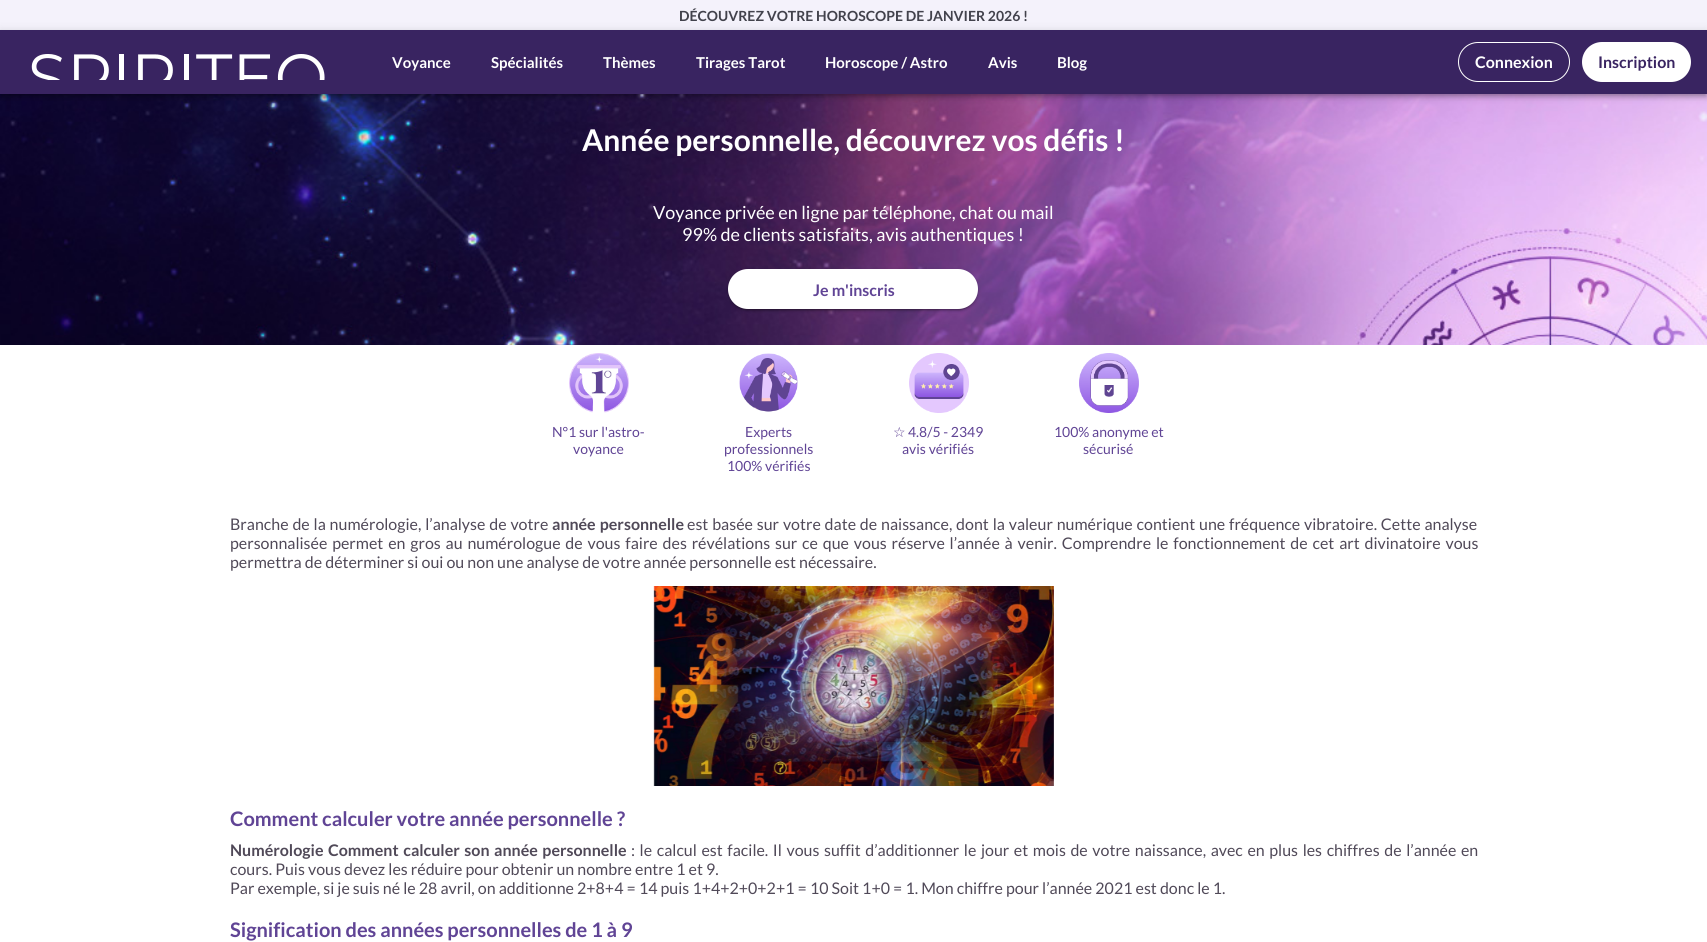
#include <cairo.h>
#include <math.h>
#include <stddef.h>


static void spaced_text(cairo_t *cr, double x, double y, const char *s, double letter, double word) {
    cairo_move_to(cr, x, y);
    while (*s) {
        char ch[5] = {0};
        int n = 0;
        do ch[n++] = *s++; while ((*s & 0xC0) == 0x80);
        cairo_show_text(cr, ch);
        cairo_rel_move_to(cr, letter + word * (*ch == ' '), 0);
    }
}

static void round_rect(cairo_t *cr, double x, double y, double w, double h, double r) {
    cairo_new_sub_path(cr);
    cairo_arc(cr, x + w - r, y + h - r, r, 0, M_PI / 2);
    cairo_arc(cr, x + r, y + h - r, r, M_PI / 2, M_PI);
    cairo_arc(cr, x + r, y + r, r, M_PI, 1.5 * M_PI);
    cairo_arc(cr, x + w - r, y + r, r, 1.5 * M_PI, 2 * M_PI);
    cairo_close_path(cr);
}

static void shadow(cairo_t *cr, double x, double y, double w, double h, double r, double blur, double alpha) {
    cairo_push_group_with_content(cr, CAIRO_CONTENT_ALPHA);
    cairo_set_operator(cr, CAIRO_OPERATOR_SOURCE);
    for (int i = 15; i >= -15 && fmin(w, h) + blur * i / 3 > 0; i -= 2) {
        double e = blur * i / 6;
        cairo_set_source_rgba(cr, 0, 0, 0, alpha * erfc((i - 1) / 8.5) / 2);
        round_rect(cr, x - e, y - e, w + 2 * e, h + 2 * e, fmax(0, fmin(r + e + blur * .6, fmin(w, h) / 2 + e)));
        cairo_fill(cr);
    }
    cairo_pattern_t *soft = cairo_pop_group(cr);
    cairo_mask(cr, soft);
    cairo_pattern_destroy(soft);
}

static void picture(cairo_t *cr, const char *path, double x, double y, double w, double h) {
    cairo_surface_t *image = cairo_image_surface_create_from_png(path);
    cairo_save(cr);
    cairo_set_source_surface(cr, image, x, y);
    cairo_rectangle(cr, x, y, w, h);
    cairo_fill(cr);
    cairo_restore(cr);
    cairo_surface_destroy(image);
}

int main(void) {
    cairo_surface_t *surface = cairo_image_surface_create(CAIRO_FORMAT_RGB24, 1707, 942);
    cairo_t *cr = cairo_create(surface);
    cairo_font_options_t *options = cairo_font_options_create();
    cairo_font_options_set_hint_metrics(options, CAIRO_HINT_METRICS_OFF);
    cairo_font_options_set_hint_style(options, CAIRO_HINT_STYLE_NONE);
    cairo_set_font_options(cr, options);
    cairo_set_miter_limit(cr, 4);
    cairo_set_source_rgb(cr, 1, 1, 1);
    cairo_paint(cr);
    cairo_set_source_rgb(cr, 0.957, 0.949, 0.984);
    cairo_rectangle(cr, 0, 0, 1707, 30);
    cairo_fill(cr);
    cairo_select_font_face(cr, "Lato", CAIRO_FONT_SLANT_NORMAL, CAIRO_FONT_WEIGHT_BOLD);
    cairo_set_font_size(cr, 14);
    cairo_set_source_rgb(cr, 0.259, 0.259, 0.298);
    cairo_move_to(cr, 679, 21);
    cairo_show_text(cr, "DÉCOUVREZ VOTRE HOROSCOPE DE JANVIER 2026 !");
    picture(cr, "img2.png", 0, 94, 1707, 251);
    cairo_set_source_rgb(cr, 0, 0, 0);
    shadow(cr, 0, 31, 1707, 64, 0, 5, 0.12);
    shadow(cr, 0, 34, 1707, 64, 0, 2.5, 0.14);
    shadow(cr, 1, 33, 1705, 62, 0, 2, 0.2);
    cairo_set_source_rgb(cr, 0.224, 0.141, 0.38);
    cairo_rectangle(cr, 0, 30, 1707, 64);
    cairo_fill(cr);
    picture(cr, "img1.png", 31, 54, 294, 26);
    cairo_set_font_size(cr, 15);
    cairo_set_source_rgb(cr, 1, 1, 1);
    cairo_move_to(cr, 392, 68);
    cairo_show_text(cr, "Voyance");
    cairo_move_to(cr, 491, 68);
    cairo_show_text(cr, "Spécialités");
    cairo_move_to(cr, 603, 68);
    cairo_show_text(cr, "Thèmes");
    cairo_move_to(cr, 696, 68);
    cairo_show_text(cr, "Tirages Tarot");
    cairo_move_to(cr, 825, 68);
    cairo_show_text(cr, "Horoscope / Astro");
    cairo_move_to(cr, 988, 68);
    cairo_show_text(cr, "Avis");
    cairo_move_to(cr, 1057, 68);
    cairo_show_text(cr, "Blog");
    round_rect(cr, 1458.5, 42.5, 111, 39, 19.5);
    cairo_set_line_width(cr, 1);
    cairo_stroke(cr);
    cairo_set_font_size(cr, 16);
    cairo_move_to(cr, 1475, 68);
    cairo_show_text(cr, "Connexion");
    round_rect(cr, 1582, 42, 109, 40, 20);
    cairo_fill(cr);
    cairo_set_source_rgb(cr, 0.224, 0.141, 0.38);
    cairo_move_to(cr, 1598, 68);
    cairo_show_text(cr, "Inscription");
    cairo_set_font_size(cr, 30);
    cairo_set_source_rgb(cr, 1, 1, 1);
    cairo_move_to(cr, 582, 151);
    cairo_show_text(cr, "Année personnelle, découvrez vos défis !");
    cairo_select_font_face(cr, "Lato", CAIRO_FONT_SLANT_NORMAL, CAIRO_FONT_WEIGHT_NORMAL);
    cairo_set_font_size(cr, 18);
    cairo_move_to(cr, 653, 219);
    cairo_show_text(cr, "Voyance privée en ligne par téléphone, chat ou mail");
    cairo_move_to(cr, 682, 241);
    cairo_show_text(cr, "99% de clients satisfaits, avis authentiques !");
    cairo_set_source_rgb(cr, 0, 0, 0);
    shadow(cr, 728, 270, 250, 40, 20, 2.5, 0.12);
    shadow(cr, 728, 271, 250, 40, 20, 1, 0.14);
    shadow(cr, 730, 274, 246, 36, 18, 0.5, 0.2);
    cairo_set_source_rgb(cr, 1, 1, 1);
    round_rect(cr, 728, 269, 250, 40, 20);
    cairo_fill(cr);
    cairo_select_font_face(cr, "Lato", CAIRO_FONT_SLANT_NORMAL, CAIRO_FONT_WEIGHT_BOLD);
    cairo_set_font_size(cr, 16);
    cairo_set_source_rgb(cr, 0.376, 0.267, 0.584);
    cairo_move_to(cr, 813, 296);
    cairo_show_text(cr, "Je m'inscris");
    picture(cr, "img3.png", 569, 353, 60, 60);
    cairo_select_font_face(cr, "Lato", CAIRO_FONT_SLANT_NORMAL, CAIRO_FONT_WEIGHT_NORMAL);
    cairo_set_font_size(cr, 14);
    cairo_move_to(cr, 552, 437);
    cairo_show_text(cr, "N°1 sur l'astro-");
    cairo_move_to(cr, 573, 454);
    cairo_show_text(cr, "voyance");
    picture(cr, "img4.png", 739, 353, 59, 59);
    cairo_move_to(cr, 745, 437);
    cairo_show_text(cr, "Experts");
    cairo_move_to(cr, 724, 454);
    cairo_show_text(cr, "professionnels");
    cairo_move_to(cr, 727, 471);
    cairo_show_text(cr, "100% vérifiés");
    picture(cr, "img5.png", 909, 353, 60, 60);
    cairo_select_font_face(cr, "DejaVu Sans", CAIRO_FONT_SLANT_NORMAL, CAIRO_FONT_WEIGHT_NORMAL);
    cairo_move_to(cr, 893, 437);
    cairo_show_text(cr, "☆");
    cairo_select_font_face(cr, "Lato", CAIRO_FONT_SLANT_NORMAL, CAIRO_FONT_WEIGHT_NORMAL);
    cairo_move_to(cr, 908, 437);
    cairo_show_text(cr, "4.8/5 - 2349");
    cairo_move_to(cr, 902, 454);
    cairo_show_text(cr, "avis vérifiés");
    picture(cr, "img6.png", 1079, 353, 60, 60);
    cairo_move_to(cr, 1054, 437);
    cairo_show_text(cr, "100% anonyme et");
    cairo_move_to(cr, 1083, 454);
    cairo_show_text(cr, "sécurisé");
    cairo_set_font_size(cr, 16);
    cairo_set_source_rgb(cr, 0.314, 0.286, 0.345);
    spaced_text(cr, 230, 530, "Branche de la numérologie, l’analyse de votre", 0, 0.75);
    cairo_select_font_face(cr, "Lato", CAIRO_FONT_SLANT_NORMAL, CAIRO_FONT_WEIGHT_BOLD);
    spaced_text(cr, 552, 530, "année personnelle", 0, 1);
    cairo_select_font_face(cr, "Lato", CAIRO_FONT_SLANT_NORMAL, CAIRO_FONT_WEIGHT_NORMAL);
    spaced_text(cr, 687, 530, "est basée sur votre date de naissance, dont la valeur numérique contient une fréquence vibratoire. Cette analyse", 0, 0.75);
    spaced_text(cr, 230, 549, "personnalisée permet en gros au numérologue de vous faire des révélations sur ce que vous réserve l’année à venir. Comprendre le fonctionnement de cet art divinatoire vous", 0, 1.75);
    cairo_move_to(cr, 230, 568);
    cairo_show_text(cr, "permettra de déterminer si oui ou non une analyse de votre année personnelle est nécessaire.");
    picture(cr, "img7.png", 653, 586, 401, 200);
    cairo_select_font_face(cr, "Lato", CAIRO_FONT_SLANT_NORMAL, CAIRO_FONT_WEIGHT_BOLD);
    cairo_set_font_size(cr, 20);
    cairo_set_source_rgb(cr, 0.376, 0.267, 0.584);
    cairo_move_to(cr, 230, 826);
    cairo_show_text(cr, "Comment calculer votre année personnelle ?");
    cairo_set_font_size(cr, 16);
    cairo_set_source_rgb(cr, 0.314, 0.286, 0.345);
    spaced_text(cr, 230, 856, "Numérologie Comment calculer son année personnelle", 0, 1.5);
    cairo_select_font_face(cr, "Lato", CAIRO_FONT_SLANT_NORMAL, CAIRO_FONT_WEIGHT_NORMAL);
    spaced_text(cr, 631, 856, ": le calcul est facile. Il vous suffit d’additionner le jour et mois de votre naissance, avec en plus les chiffres de l’année en", 0, 1.5);
    cairo_move_to(cr, 230, 875);
    cairo_show_text(cr, "cours. Puis vous devez les réduire pour obtenir un nombre entre 1 et 9.");
    cairo_move_to(cr, 230, 894);
    cairo_show_text(cr, "Par exemple, si je suis né le 28 avril, on additionne 2+8+4 = 14 puis 1+4+2+0+2+1 = 10 Soit 1+0 = 1. Mon chiffre pour l’année 2021 est donc le 1.");
    cairo_select_font_face(cr, "Lato", CAIRO_FONT_SLANT_NORMAL, CAIRO_FONT_WEIGHT_BOLD);
    cairo_set_font_size(cr, 20);
    cairo_set_source_rgb(cr, 0.376, 0.267, 0.584);
    cairo_move_to(cr, 230, 937);
    cairo_show_text(cr, "Signification des années personnelles de 1 à 9");
    cairo_surface_write_to_png(surface, "page.png");
    cairo_font_options_destroy(options);
    cairo_destroy(cr);
    cairo_surface_destroy(surface);
    return 0;
}
